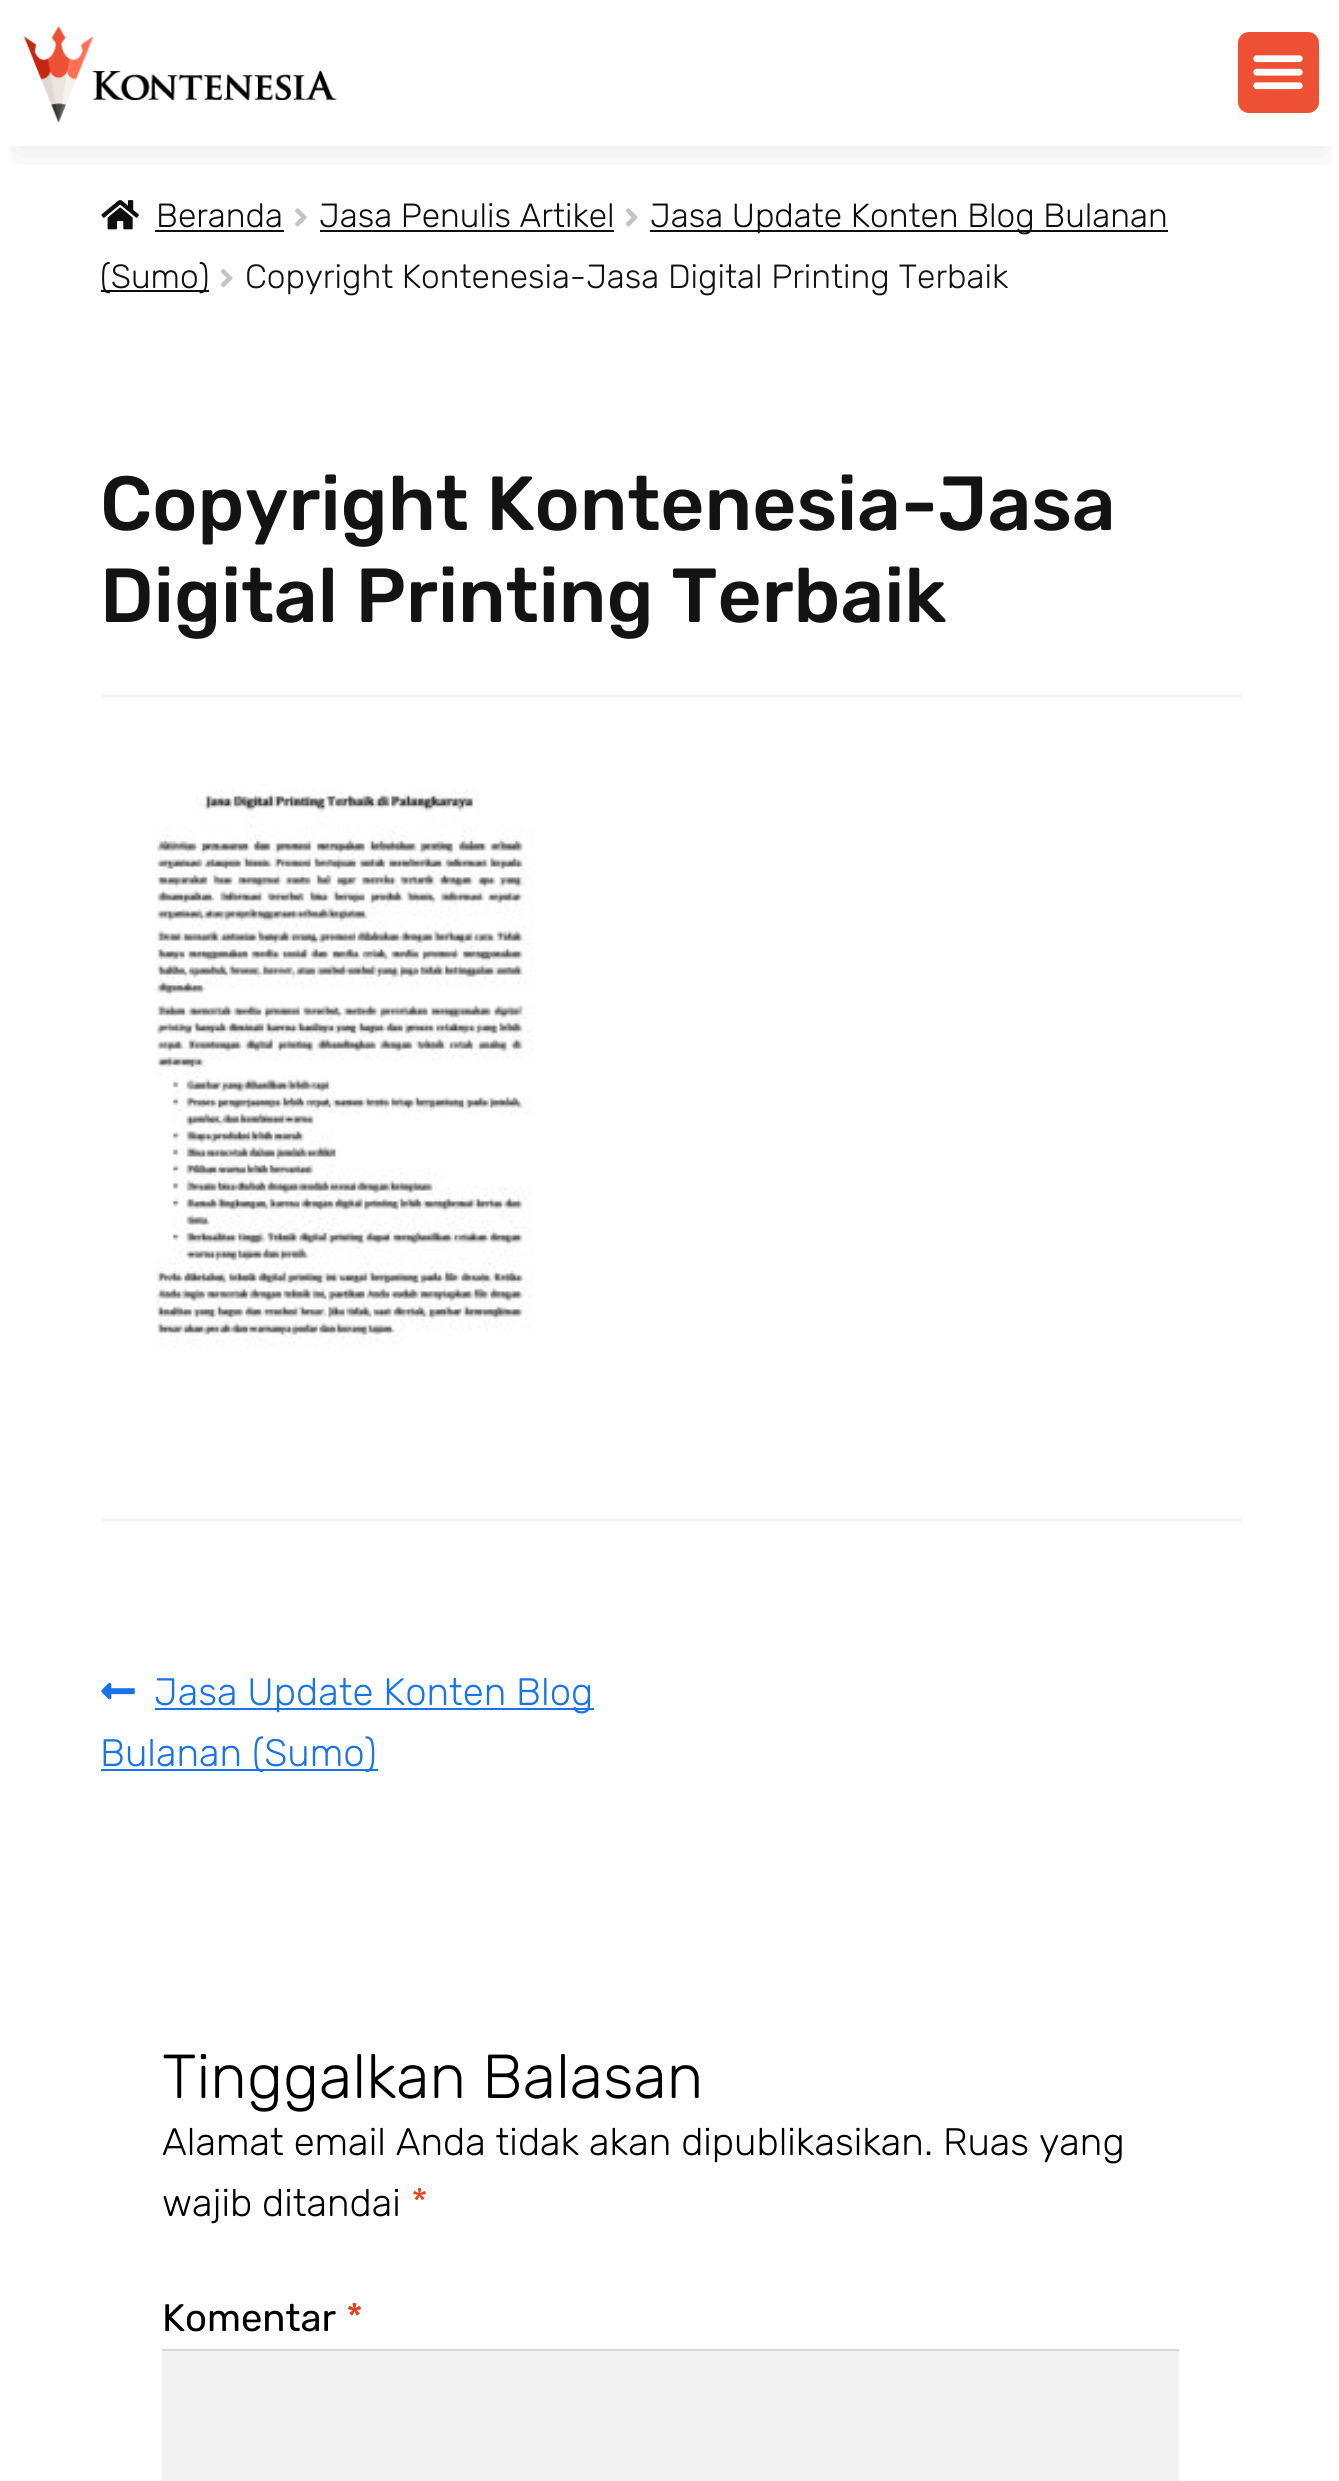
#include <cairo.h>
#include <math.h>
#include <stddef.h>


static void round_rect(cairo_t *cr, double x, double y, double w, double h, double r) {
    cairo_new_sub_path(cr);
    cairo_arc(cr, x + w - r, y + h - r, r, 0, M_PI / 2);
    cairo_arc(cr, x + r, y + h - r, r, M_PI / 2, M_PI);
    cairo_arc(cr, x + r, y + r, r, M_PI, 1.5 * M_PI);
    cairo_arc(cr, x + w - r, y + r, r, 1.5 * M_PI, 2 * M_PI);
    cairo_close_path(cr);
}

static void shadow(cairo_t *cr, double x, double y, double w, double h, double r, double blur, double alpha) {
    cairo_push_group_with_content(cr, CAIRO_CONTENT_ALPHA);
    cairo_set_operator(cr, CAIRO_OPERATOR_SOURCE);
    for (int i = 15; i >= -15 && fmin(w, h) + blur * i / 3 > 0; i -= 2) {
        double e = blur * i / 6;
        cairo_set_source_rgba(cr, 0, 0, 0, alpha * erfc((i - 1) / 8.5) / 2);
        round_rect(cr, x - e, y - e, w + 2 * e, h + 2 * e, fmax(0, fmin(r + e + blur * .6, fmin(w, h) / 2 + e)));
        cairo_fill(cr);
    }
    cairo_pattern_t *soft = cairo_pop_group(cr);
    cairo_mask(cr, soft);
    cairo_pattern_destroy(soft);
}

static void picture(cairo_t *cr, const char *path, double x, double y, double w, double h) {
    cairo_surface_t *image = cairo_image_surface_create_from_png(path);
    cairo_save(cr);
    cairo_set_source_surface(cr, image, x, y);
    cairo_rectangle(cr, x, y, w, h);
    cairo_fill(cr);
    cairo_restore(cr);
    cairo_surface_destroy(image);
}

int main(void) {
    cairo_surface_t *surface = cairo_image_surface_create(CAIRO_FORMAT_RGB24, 1339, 2481);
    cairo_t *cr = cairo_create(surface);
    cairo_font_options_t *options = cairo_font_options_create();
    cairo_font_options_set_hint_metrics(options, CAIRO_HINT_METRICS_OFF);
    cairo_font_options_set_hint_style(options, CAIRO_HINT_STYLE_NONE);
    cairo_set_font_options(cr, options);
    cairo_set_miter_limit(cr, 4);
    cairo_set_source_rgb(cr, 1, 1, 1);
    cairo_paint(cr);
    picture(cr, "img3.png", 101, 200, 38, 30);
    picture(cr, "img4.png", 295, 208, 12, 19);
    picture(cr, "img5.png", 625, 208, 13, 19);
    cairo_save(cr);
    cairo_rectangle(cr, 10, 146, 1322, 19);
    cairo_clip(cr);
    cairo_set_source_rgb(cr, 0, 0, 0);
    shadow(cr, 14, 27, 1314, 119, 0, 22.5, 0.1);
    cairo_restore(cr);
    picture(cr, "img1.png", 23, 26, 314, 97);
    cairo_set_source_rgb(cr, 0.929, 0.314, 0.204);
    round_rect(cr, 1238, 32, 81, 81, 11);
    cairo_fill(cr);
    picture(cr, "img2.png", 1253, 55, 50, 35);
    cairo_select_font_face(cr, "Rubik Light", CAIRO_FONT_SLANT_NORMAL, CAIRO_FONT_WEIGHT_NORMAL);
    cairo_set_font_size(cr, 33.5);
    cairo_set_source_rgb(cr, 0.059, 0.059, 0.059);
    cairo_move_to(cr, 156, 227);
    cairo_show_text(cr, "Beranda");
    cairo_rectangle(cr, 155, 230, 129, 2);
    cairo_fill(cr);
    cairo_move_to(cr, 319, 227);
    cairo_show_text(cr, "Jasa Penulis Artikel");
    cairo_rectangle(cr, 320, 230, 294, 2);
    cairo_fill(cr);
    cairo_rectangle(cr, 650, 230, 518, 2);
    cairo_fill(cr);
    cairo_move_to(cr, 650, 227);
    cairo_show_text(cr, "Jasa Update Konten Blog Bulanan");
    cairo_rectangle(cr, 101, 290, 108, 2);
    cairo_fill(cr);
    cairo_move_to(cr, 100, 288);
    cairo_show_text(cr, "(Sumo)");
    picture(cr, "img6.png", 220, 269, 13, 19);
    cairo_set_source_rgb(cr, 0.075, 0.075, 0.082);
    cairo_move_to(cr, 245, 288);
    cairo_show_text(cr, "Copyright Kontenesia-Jasa Digital Printing Terbaik");
    cairo_set_source_rgb(cr, 0.949, 0.949, 0.949);
    cairo_rectangle(cr, 101, 695, 1141, 2);
    cairo_fill(cr);
    cairo_select_font_face(cr, "Rubik Medium", CAIRO_FONT_SLANT_NORMAL, CAIRO_FONT_WEIGHT_NORMAL);
    cairo_set_font_size(cr, 76.5);
    cairo_set_source_rgb(cr, 0.075, 0.075, 0.082);
    cairo_move_to(cr, 100, 530);
    cairo_show_text(cr, "Copyright Kontenesia-Jasa");
    cairo_move_to(cr, 100, 622);
    cairo_show_text(cr, "Digital Printing Terbaik");
    picture(cr, "img7.png", 155, 789, 379, 559);
    cairo_set_source_rgb(cr, 0.949, 0.949, 0.949);
    cairo_rectangle(cr, 101, 1519, 1141, 2);
    cairo_fill(cr);
    picture(cr, "img8.png", 101, 1682, 34, 18);
    cairo_set_source_rgb(cr, 0.102, 0.451, 0.91);
    cairo_rectangle(cr, 155, 1708, 439, 2);
    cairo_fill(cr);
    cairo_select_font_face(cr, "Rubik Light", CAIRO_FONT_SLANT_NORMAL, CAIRO_FONT_WEIGHT_NORMAL);
    cairo_set_font_size(cr, 38.25);
    cairo_move_to(cr, 154, 1705);
    cairo_show_text(cr, "Jasa Update Konten Blog");
    cairo_rectangle(cr, 101, 1769, 277, 2);
    cairo_fill(cr);
    cairo_move_to(cr, 100, 1766);
    cairo_show_text(cr, "Bulanan (Sumo)");
    cairo_set_font_size(cr, 62);
    cairo_set_source_rgb(cr, 0, 0, 0);
    cairo_move_to(cr, 162, 2098);
    cairo_show_text(cr, "Tinggalkan Balasan");
    cairo_set_font_size(cr, 38.25);
    cairo_move_to(cr, 162, 2155);
    cairo_show_text(cr, "Alamat email Anda tidak akan dipublikasikan. Ruas yang");
    cairo_move_to(cr, 162, 2216);
    cairo_show_text(cr, "wajib ditandai");
    cairo_set_source_rgb(cr, 0.886, 0.251, 0.11);
    cairo_move_to(cr, 411, 2216);
    cairo_show_text(cr, "*");
    cairo_select_font_face(cr, "Rubik", CAIRO_FONT_SLANT_NORMAL, CAIRO_FONT_WEIGHT_NORMAL);
    cairo_set_source_rgb(cr, 0, 0, 0);
    cairo_move_to(cr, 162, 2331);
    cairo_show_text(cr, "Komentar");
    cairo_set_source_rgb(cr, 0.886, 0.251, 0.11);
    cairo_move_to(cr, 346, 2331);
    cairo_show_text(cr, "*");
    cairo_set_source_rgb(cr, 0.949, 0.949, 0.949);
    cairo_rectangle(cr, 162, 2351, 1017, 130);
    cairo_fill(cr);
    cairo_set_source_rgb(cr, 0.831, 0.831, 0.831);
    cairo_rectangle(cr, 162, 2349, 1017, 2);
    cairo_fill(cr);
    cairo_surface_write_to_png(surface, "page.png");
    cairo_font_options_destroy(options);
    cairo_destroy(cr);
    cairo_surface_destroy(surface);
    return 0;
}
